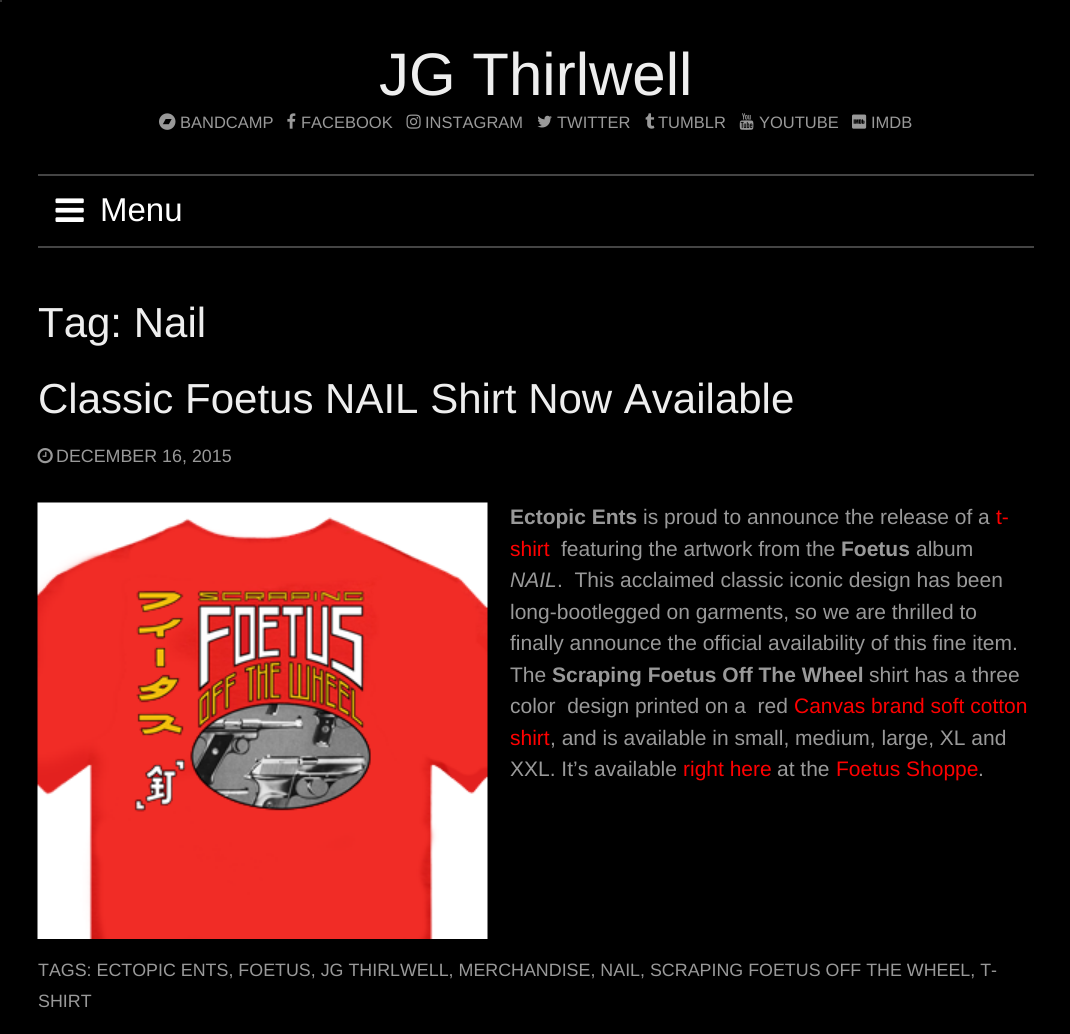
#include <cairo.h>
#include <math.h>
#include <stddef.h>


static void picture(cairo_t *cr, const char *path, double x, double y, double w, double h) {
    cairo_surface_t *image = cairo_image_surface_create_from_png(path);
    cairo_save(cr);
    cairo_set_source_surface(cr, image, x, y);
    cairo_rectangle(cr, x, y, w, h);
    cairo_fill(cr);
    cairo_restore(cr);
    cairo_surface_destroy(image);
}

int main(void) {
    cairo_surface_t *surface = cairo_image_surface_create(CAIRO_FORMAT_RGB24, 1070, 1034);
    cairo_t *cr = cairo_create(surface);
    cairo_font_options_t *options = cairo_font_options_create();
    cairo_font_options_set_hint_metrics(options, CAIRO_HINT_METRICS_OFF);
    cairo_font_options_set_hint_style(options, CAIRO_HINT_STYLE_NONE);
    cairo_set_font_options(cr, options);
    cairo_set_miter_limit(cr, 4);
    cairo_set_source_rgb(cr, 0, 0, 0);
    cairo_paint(cr);
    cairo_set_source_rgb(cr, 0.2, 0.2, 0.2);
    cairo_rectangle(cr, 0, 0, 2, 2);
    cairo_fill(cr);
    cairo_select_font_face(cr, "Liberation Sans", CAIRO_FONT_SLANT_NORMAL, CAIRO_FONT_WEIGHT_NORMAL);
    cairo_set_font_size(cr, 60);
    cairo_set_source_rgb(cr, 0.933, 0.933, 0.933);
    cairo_move_to(cr, 379, 95);
    cairo_show_text(cr, "JG Thirlwell");
    picture(cr, "img1.png", 159, 113, 17, 17);
    cairo_set_font_size(cr, 16.5);
    cairo_set_source_rgb(cr, 0.6, 0.6, 0.6);
    cairo_move_to(cr, 180, 128);
    cairo_show_text(cr, "BANDCAMP");
    picture(cr, "img2.png", 287, 113, 9, 16);
    cairo_move_to(cr, 301, 128);
    cairo_show_text(cr, "FACEBOOK");
    picture(cr, "img3.png", 406, 114, 15, 15);
    cairo_move_to(cr, 425, 128);
    cairo_show_text(cr, "INSTAGRAM");
    picture(cr, "img4.png", 537, 115, 15, 13);
    cairo_move_to(cr, 557, 128);
    cairo_show_text(cr, "TWITTER");
    picture(cr, "img5.png", 645, 113, 10, 16);
    cairo_move_to(cr, 658, 128);
    cairo_show_text(cr, "TUMBLR");
    picture(cr, "img6.png", 739, 113, 15, 17);
    cairo_move_to(cr, 759, 128);
    cairo_show_text(cr, "YOUTUBE");
    picture(cr, "img7.png", 852, 114, 15, 15);
    cairo_move_to(cr, 871, 128);
    cairo_show_text(cr, "IMDB");
    cairo_set_source_rgb(cr, 0.267, 0.267, 0.267);
    cairo_rectangle(cr, 38, 174, 996, 2);
    cairo_fill(cr);
    cairo_rectangle(cr, 38, 246, 996, 2);
    cairo_fill(cr);
    picture(cr, "img8.png", 55, 198, 29, 24);
    cairo_set_font_size(cr, 33);
    cairo_set_source_rgb(cr, 1, 1, 1);
    cairo_move_to(cr, 100, 221);
    cairo_show_text(cr, "Menu");
    cairo_set_font_size(cr, 42);
    cairo_set_source_rgb(cr, 0.933, 0.933, 0.933);
    cairo_move_to(cr, 38, 337);
    cairo_show_text(cr, "Tag: Nail");
    cairo_move_to(cr, 38, 413);
    cairo_show_text(cr, "Classic Foetus NAIL Shirt Now Available");
    picture(cr, "img9.png", 37, 448, 16, 16);
    cairo_set_font_size(cr, 17.85);
    cairo_set_source_rgb(cr, 0.6, 0.6, 0.6);
    cairo_move_to(cr, 56, 462);
    cairo_show_text(cr, "DECEMBER 16, 2015");
    picture(cr, "img10.png", 37, 502, 451, 437);
    cairo_select_font_face(cr, "Liberation Sans", CAIRO_FONT_SLANT_NORMAL, CAIRO_FONT_WEIGHT_BOLD);
    cairo_set_font_size(cr, 21);
    cairo_move_to(cr, 510, 524);
    cairo_show_text(cr, "Ectopic Ents");
    cairo_select_font_face(cr, "Liberation Sans", CAIRO_FONT_SLANT_NORMAL, CAIRO_FONT_WEIGHT_NORMAL);
    cairo_move_to(cr, 643, 524);
    cairo_show_text(cr, "is proud to announce the release of a");
    cairo_set_source_rgb(cr, 1, 0, 0);
    cairo_move_to(cr, 996, 524);
    cairo_show_text(cr, "t-");
    cairo_move_to(cr, 510, 556);
    cairo_show_text(cr, "shirt");
    cairo_set_source_rgb(cr, 0.6, 0.6, 0.6);
    cairo_move_to(cr, 561, 556);
    cairo_show_text(cr, "featuring the artwork from the");
    cairo_select_font_face(cr, "Liberation Sans", CAIRO_FONT_SLANT_NORMAL, CAIRO_FONT_WEIGHT_BOLD);
    cairo_move_to(cr, 841, 556);
    cairo_show_text(cr, "Foetus");
    cairo_select_font_face(cr, "Liberation Sans", CAIRO_FONT_SLANT_NORMAL, CAIRO_FONT_WEIGHT_NORMAL);
    cairo_move_to(cr, 916, 556);
    cairo_show_text(cr, "album");
    cairo_select_font_face(cr, "Liberation Sans", CAIRO_FONT_SLANT_ITALIC, CAIRO_FONT_WEIGHT_NORMAL);
    cairo_move_to(cr, 510, 587);
    cairo_show_text(cr, "NAIL");
    cairo_select_font_face(cr, "Liberation Sans", CAIRO_FONT_SLANT_NORMAL, CAIRO_FONT_WEIGHT_NORMAL);
    cairo_move_to(cr, 557, 587);
    cairo_show_text(cr, ".  This acclaimed classic iconic design has been");
    cairo_move_to(cr, 510, 619);
    cairo_show_text(cr, "long-bootlegged on garments, so we are thrilled to");
    cairo_move_to(cr, 510, 650);
    cairo_show_text(cr, "finally announce the official availability of this fine item.");
    cairo_move_to(cr, 510, 682);
    cairo_show_text(cr, "The");
    cairo_select_font_face(cr, "Liberation Sans", CAIRO_FONT_SLANT_NORMAL, CAIRO_FONT_WEIGHT_BOLD);
    cairo_move_to(cr, 552, 682);
    cairo_show_text(cr, "Scraping Foetus Off The Wheel");
    cairo_select_font_face(cr, "Liberation Sans", CAIRO_FONT_SLANT_NORMAL, CAIRO_FONT_WEIGHT_NORMAL);
    cairo_move_to(cr, 869, 682);
    cairo_show_text(cr, "shirt has a three");
    cairo_move_to(cr, 510, 713);
    cairo_show_text(cr, "color  design printed on a  red");
    cairo_set_source_rgb(cr, 1, 0, 0);
    cairo_move_to(cr, 794, 713);
    cairo_show_text(cr, "Canvas brand soft cotton");
    cairo_move_to(cr, 510, 745);
    cairo_show_text(cr, "shirt");
    cairo_set_source_rgb(cr, 0.6, 0.6, 0.6);
    cairo_move_to(cr, 550, 745);
    cairo_show_text(cr, ", and is available in small, medium, large, XL and");
    cairo_move_to(cr, 510, 776);
    cairo_show_text(cr, "XXL. It’s available");
    cairo_set_source_rgb(cr, 1, 0, 0);
    cairo_move_to(cr, 683, 776);
    cairo_show_text(cr, "right here");
    cairo_set_source_rgb(cr, 0.6, 0.6, 0.6);
    cairo_move_to(cr, 777, 776);
    cairo_show_text(cr, "at the");
    cairo_set_source_rgb(cr, 1, 0, 0);
    cairo_move_to(cr, 836, 776);
    cairo_show_text(cr, "Foetus Shoppe");
    cairo_set_source_rgb(cr, 0.6, 0.6, 0.6);
    cairo_move_to(cr, 978, 776);
    cairo_show_text(cr, ".");
    cairo_set_font_size(cr, 17.85);
    cairo_move_to(cr, 38, 976);
    cairo_show_text(cr, "TAGS: ECTOPIC ENTS, FOETUS, JG THIRLWELL, MERCHANDISE, NAIL, SCRAPING FOETUS OFF THE WHEEL, T-");
    cairo_move_to(cr, 38, 1007);
    cairo_show_text(cr, "SHIRT");
    cairo_surface_write_to_png(surface, "page.png");
    cairo_font_options_destroy(options);
    cairo_destroy(cr);
    cairo_surface_destroy(surface);
    return 0;
}
